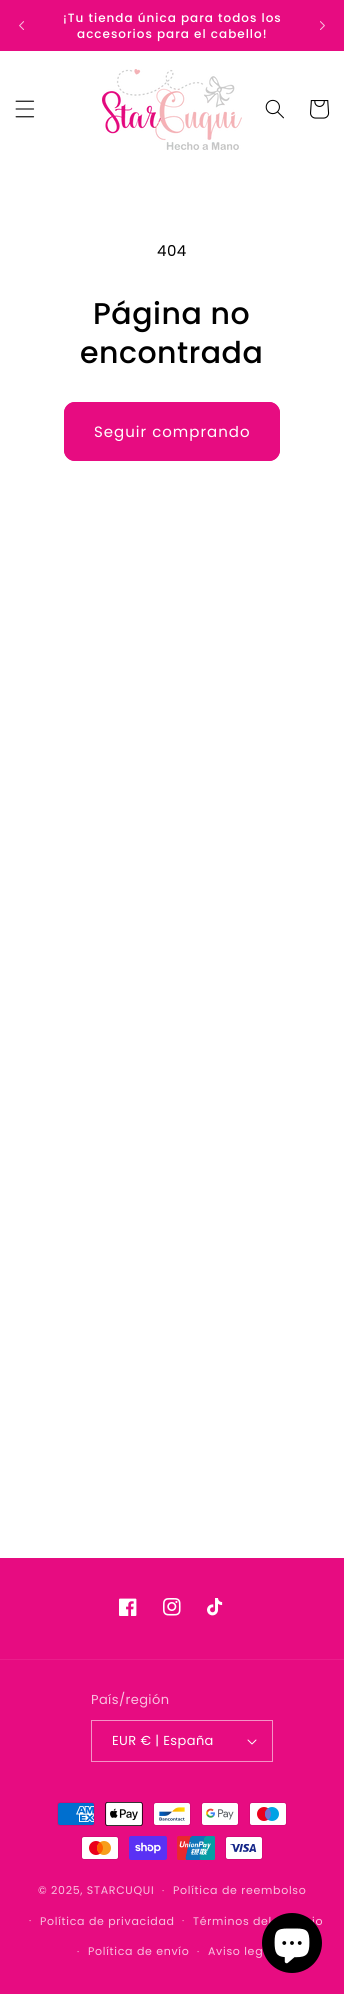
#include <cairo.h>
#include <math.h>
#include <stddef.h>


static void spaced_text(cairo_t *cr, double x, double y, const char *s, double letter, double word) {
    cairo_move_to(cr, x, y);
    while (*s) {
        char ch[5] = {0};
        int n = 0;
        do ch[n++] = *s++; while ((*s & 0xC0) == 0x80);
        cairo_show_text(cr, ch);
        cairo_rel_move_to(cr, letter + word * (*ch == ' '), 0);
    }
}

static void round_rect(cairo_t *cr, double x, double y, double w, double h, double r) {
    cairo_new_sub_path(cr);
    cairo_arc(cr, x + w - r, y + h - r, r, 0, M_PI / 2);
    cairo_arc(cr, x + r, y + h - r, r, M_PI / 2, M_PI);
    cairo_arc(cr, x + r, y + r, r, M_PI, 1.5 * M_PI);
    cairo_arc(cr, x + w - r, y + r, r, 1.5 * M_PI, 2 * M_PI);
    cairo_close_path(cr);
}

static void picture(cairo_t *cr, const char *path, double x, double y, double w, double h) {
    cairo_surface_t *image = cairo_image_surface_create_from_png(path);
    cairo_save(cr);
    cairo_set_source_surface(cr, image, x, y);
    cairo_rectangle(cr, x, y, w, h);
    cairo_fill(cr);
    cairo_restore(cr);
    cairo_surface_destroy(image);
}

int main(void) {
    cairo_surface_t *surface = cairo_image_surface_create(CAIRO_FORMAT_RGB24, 344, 1994);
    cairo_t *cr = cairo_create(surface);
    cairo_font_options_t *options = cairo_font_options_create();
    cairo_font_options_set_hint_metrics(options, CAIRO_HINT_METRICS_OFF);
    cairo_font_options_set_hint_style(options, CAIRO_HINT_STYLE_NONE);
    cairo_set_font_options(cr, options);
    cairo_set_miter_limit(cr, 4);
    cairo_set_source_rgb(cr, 1, 1, 1);
    cairo_paint(cr);
    cairo_set_source_rgb(cr, 0.906, 0.047, 0.506);
    cairo_rectangle(cr, 0, 0, 344, 51);
    cairo_fill(cr);
    picture(cr, "img1.png", 19, 21, 5, 9);
    cairo_select_font_face(cr, "Poppins Medium", CAIRO_FONT_SLANT_NORMAL, CAIRO_FONT_WEIGHT_NORMAL);
    cairo_set_font_size(cr, 12);
    cairo_set_source_rgb(cr, 1, 1, 1);
    spaced_text(cr, 63, 22, "¡Tu tienda única para todos los", 1, 0);
    spaced_text(cr, 77, 38, "accesorios para el cabello!", 1, 0);
    picture(cr, "img2.png", 320, 21, 5, 9);
    picture(cr, "img3.png", 15, 100, 20, 18);
    picture(cr, "img4.png", 102, 69, 140, 81);
    picture(cr, "img5.png", 265, 99, 19, 20);
    picture(cr, "img6.png", 310, 100, 20, 19);
    cairo_select_font_face(cr, "Poppins", CAIRO_FONT_SLANT_NORMAL, CAIRO_FONT_WEIGHT_NORMAL);
    cairo_set_font_size(cr, 15);
    cairo_set_source_rgb(cr, 0, 0, 0);
    spaced_text(cr, 157, 256, "404", 0.5, 0);
    cairo_select_font_face(cr, "Poppins Medium", CAIRO_FONT_SLANT_NORMAL, CAIRO_FONT_WEIGHT_NORMAL);
    cairo_set_font_size(cr, 30);
    spaced_text(cr, 93, 324, "Página no", 0.5, 0);
    spaced_text(cr, 80, 363, "encontrada", 0.5, 0);
    cairo_set_source_rgb(cr, 0.906, 0.047, 0.506);
    round_rect(cr, 64, 402, 216, 59, 11);
    cairo_fill(cr);
    round_rect(cr, 67.5, 405.5, 209, 52, 7.5);
    cairo_set_line_width(cr, 7);
    cairo_stroke(cr);
    cairo_select_font_face(cr, "Poppins", CAIRO_FONT_SLANT_NORMAL, CAIRO_FONT_WEIGHT_NORMAL);
    cairo_set_font_size(cr, 15);
    cairo_set_source_rgb(cr, 1, 1, 1);
    spaced_text(cr, 94, 437, "Seguir comprando", 1, 0);
    cairo_set_source_rgb(cr, 0.906, 0.047, 0.506);
    cairo_rectangle(cr, 0, 1558, 344, 436);
    cairo_fill(cr);
    picture(cr, "img7.png", 119, 1598, 18, 18);
    picture(cr, "img8.png", 163, 1598, 18, 18);
    picture(cr, "img9.png", 207, 1598, 16, 18);
    cairo_set_source_rgb(cr, 0.914, 0.122, 0.545);
    cairo_rectangle(cr, 0, 1659, 344, 1);
    cairo_fill(cr);
    cairo_set_font_size(cr, 13);
    cairo_set_source_rgb(cr, 0.976, 0.761, 0.878);
    spaced_text(cr, 91, 1704, "País/región", 0.4, 0);
    picture(cr, "img10.png", 247, 1739, 10, 6);
    cairo_rectangle(cr, 91.5, 1720.5, 181, 41);
    cairo_set_source_rgb(cr, 0.957, 0.573, 0.776);
    cairo_set_line_width(cr, 1);
    cairo_stroke(cr);
    cairo_set_source_rgb(cr, 1, 1, 1);
    spaced_text(cr, 112, 1745, "EUR € | España", 0.4, 0);
    picture(cr, "img11.png", 57, 1802, 38, 24);
    picture(cr, "img12.png", 105, 1802, 38, 24);
    picture(cr, "img13.png", 153, 1802, 38, 24);
    picture(cr, "img14.png", 201, 1802, 38, 24);
    picture(cr, "img15.png", 249, 1802, 38, 24);
    picture(cr, "img16.png", 81, 1836, 38, 24);
    picture(cr, "img17.png", 129, 1836, 38, 24);
    picture(cr, "img18.png", 177, 1836, 38, 24);
    picture(cr, "img19.png", 225, 1836, 38, 24);
    cairo_set_font_size(cr, 10);
    cairo_set_source_rgb(cr, 0.976, 0.761, 0.878);
    spaced_text(cr, 162, 1894, "·", 0.7, 0);
    cairo_set_font_size(cr, 11);
    spaced_text(cr, 173, 1894, "Política de reembolso", 0.7, 0);
    cairo_set_font_size(cr, 10);
    spaced_text(cr, 29, 1924, "·", 0.7, 0);
    cairo_set_font_size(cr, 11);
    spaced_text(cr, 40, 1925, "Política de privacidad", 0.7, 0);
    cairo_set_font_size(cr, 10);
    spaced_text(cr, 182, 1924, "·", 0.7, 0);
    cairo_set_font_size(cr, 11);
    spaced_text(cr, 193, 1925, "Términos del", 0.7, 0);
    spaced_text(cr, 312, 1925, "io", 0.7, 0);
    cairo_set_font_size(cr, 10);
    spaced_text(cr, 77, 1955, "·", 0.7, 0);
    cairo_set_font_size(cr, 11);
    spaced_text(cr, 88, 1955, "Política de envío", 0.7, 0);
    cairo_set_font_size(cr, 10);
    spaced_text(cr, 197, 1955, "·", 0.7, 0);
    cairo_set_font_size(cr, 11);
    spaced_text(cr, 208, 1955, "Aviso leg", 0.7, 0);
    spaced_text(cr, 38, 1894, "© 2025, STARCUQUI", 0.7, 0);
    cairo_set_source_rgb(cr, 0, 0, 0);
    cairo_new_path(cr);
    cairo_arc(cr, 292, 1943, 30, 0, 2 * M_PI);
    cairo_fill(cr);
    picture(cr, "img20.png", 274, 1928, 36, 36);
    cairo_surface_write_to_png(surface, "page.png");
    cairo_font_options_destroy(options);
    cairo_destroy(cr);
    cairo_surface_destroy(surface);
    return 0;
}
